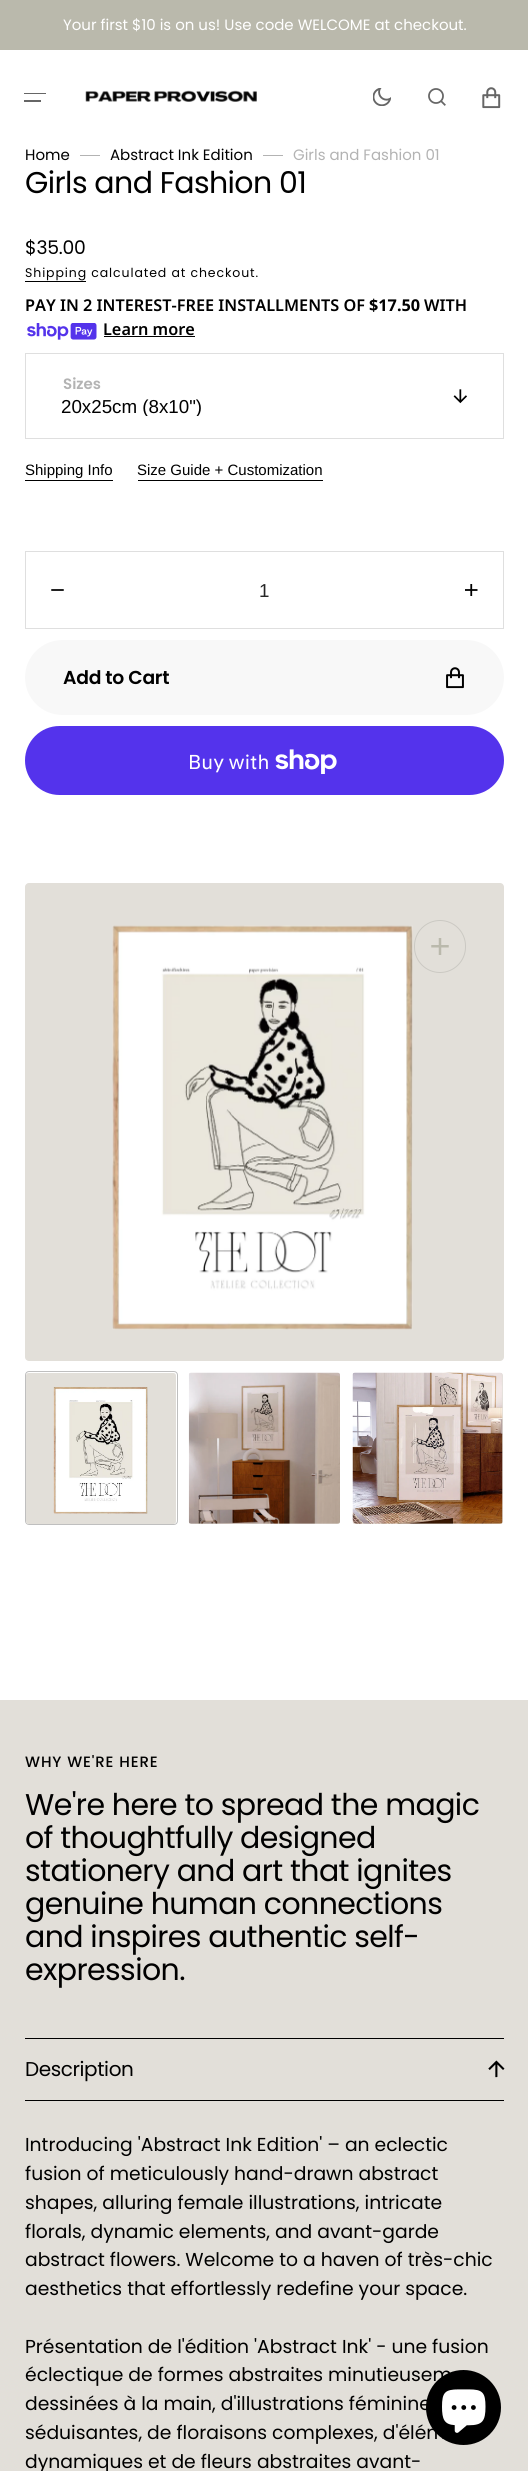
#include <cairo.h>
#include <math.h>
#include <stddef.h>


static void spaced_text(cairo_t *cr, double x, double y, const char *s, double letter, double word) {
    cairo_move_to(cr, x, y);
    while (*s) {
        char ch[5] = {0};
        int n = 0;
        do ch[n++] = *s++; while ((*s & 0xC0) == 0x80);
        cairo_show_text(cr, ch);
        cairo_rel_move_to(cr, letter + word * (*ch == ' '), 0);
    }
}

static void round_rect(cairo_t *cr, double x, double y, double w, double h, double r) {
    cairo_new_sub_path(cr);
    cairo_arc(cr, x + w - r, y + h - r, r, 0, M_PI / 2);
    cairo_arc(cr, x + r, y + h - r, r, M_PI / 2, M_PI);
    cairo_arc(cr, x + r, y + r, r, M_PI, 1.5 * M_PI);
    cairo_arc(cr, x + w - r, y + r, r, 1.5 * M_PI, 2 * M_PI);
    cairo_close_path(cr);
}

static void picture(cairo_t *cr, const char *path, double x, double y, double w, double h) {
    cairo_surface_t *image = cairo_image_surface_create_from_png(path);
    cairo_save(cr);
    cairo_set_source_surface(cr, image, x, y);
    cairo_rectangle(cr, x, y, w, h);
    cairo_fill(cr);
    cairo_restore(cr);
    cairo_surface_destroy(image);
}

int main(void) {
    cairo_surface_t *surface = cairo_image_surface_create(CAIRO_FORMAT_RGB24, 528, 2471);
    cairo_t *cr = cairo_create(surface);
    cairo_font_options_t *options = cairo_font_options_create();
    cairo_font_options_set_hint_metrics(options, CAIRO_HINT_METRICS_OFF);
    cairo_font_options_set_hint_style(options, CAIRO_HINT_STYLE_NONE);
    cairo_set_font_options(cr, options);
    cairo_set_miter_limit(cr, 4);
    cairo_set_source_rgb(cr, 1, 1, 1);
    cairo_paint(cr);
    cairo_set_source_rgb(cr, 0.729, 0.725, 0.675);
    cairo_rectangle(cr, 0, 0, 528, 50);
    cairo_fill(cr);
    cairo_select_font_face(cr, "Poppins", CAIRO_FONT_SLANT_NORMAL, CAIRO_FONT_WEIGHT_NORMAL);
    cairo_set_font_size(cr, 15);
    cairo_set_source_rgb(cr, 1, 1, 1);
    cairo_move_to(cr, 63, 30);
    cairo_show_text(cr, "Your first $10 is on us! Use code WELCOME at checkout.");
    cairo_set_source_rgb(cr, 0.4, 0.4, 0.4);
    cairo_rectangle(cr, 24, 93, 22, 1);
    cairo_fill(cr);
    cairo_rectangle(cr, 24, 100, 17, 2);
    cairo_fill(cr);
    picture(cr, "img1.png", 85, 90, 172, 12);
    picture(cr, "img2.png", 373, 88, 18, 18);
    picture(cr, "img3.png", 428, 88, 18, 18);
    picture(cr, "img4.png", 482, 87, 19, 22);
    cairo_set_source_rgb(cr, 0, 0, 0);
    cairo_move_to(cr, 25, 160);
    cairo_show_text(cr, "Home");
    cairo_set_source_rgb(cr, 0.702, 0.702, 0.702);
    cairo_rectangle(cr, 80, 155, 20, 1);
    cairo_fill(cr);
    cairo_set_source_rgb(cr, 0, 0, 0);
    cairo_move_to(cr, 110, 160);
    cairo_show_text(cr, "Abstract Ink Edition");
    cairo_set_source_rgb(cr, 0.702, 0.702, 0.702);
    cairo_rectangle(cr, 263, 155, 20, 1);
    cairo_fill(cr);
    cairo_move_to(cr, 293, 160);
    cairo_show_text(cr, "Girls and Fashion 01");
    cairo_set_font_size(cr, 30);
    cairo_set_source_rgb(cr, 0, 0, 0);
    spaced_text(cr, 25, 193, "Girls and Fashion 01", -0.6, 0);
    cairo_set_font_size(cr, 18.75);
    spaced_text(cr, 25, 254, "$35.00", -0.25, 0);
    cairo_set_font_size(cr, 12.5);
    spaced_text(cr, 25, 277, "Shipping calculated at checkout.", 0.9, 0);
    cairo_rectangle(cr, 25, 281, 61, 1);
    cairo_fill(cr);
    cairo_select_font_face(cr, "Noto Sans SemiBold", CAIRO_FONT_SLANT_NORMAL, CAIRO_FONT_WEIGHT_NORMAL);
    cairo_set_font_size(cr, 16.25);
    cairo_move_to(cr, 25, 311);
    cairo_show_text(cr, "PAY IN 2 INTEREST-FREE INSTALLMENTS OF");
    cairo_select_font_face(cr, "Noto Sans", CAIRO_FONT_SLANT_NORMAL, CAIRO_FONT_WEIGHT_BOLD);
    cairo_move_to(cr, 369, 311);
    cairo_show_text(cr, "$17.50");
    cairo_select_font_face(cr, "Noto Sans SemiBold", CAIRO_FONT_SLANT_NORMAL, CAIRO_FONT_WEIGHT_NORMAL);
    cairo_move_to(cr, 424, 311);
    cairo_show_text(cr, "WITH");
    picture(cr, "img5.png", 27, 323, 70, 17);
    cairo_move_to(cr, 103, 335);
    cairo_show_text(cr, "Learn more");
    cairo_rectangle(cr, 104, 336, 91, 1);
    cairo_fill(cr);
    cairo_select_font_face(cr, "Poppins SemiBold", CAIRO_FONT_SLANT_NORMAL, CAIRO_FONT_WEIGHT_NORMAL);
    cairo_set_font_size(cr, 15);
    cairo_set_source_rgb(cr, 0.702, 0.702, 0.702);
    cairo_move_to(cr, 63, 389);
    cairo_show_text(cr, "Sizes");
    cairo_rectangle(cr, 25.5, 353.5, 478, 85);
    cairo_set_source_rgb(cr, 0.875, 0.875, 0.875);
    cairo_set_line_width(cr, 1);
    cairo_stroke(cr);
    picture(cr, "img6.png", 453, 389, 14, 15);
    cairo_save(cr);
    cairo_rectangle(cr, 61, 395, 379, 21);
    cairo_clip(cr);
    cairo_select_font_face(cr, "Liberation Sans", CAIRO_FONT_SLANT_NORMAL, CAIRO_FONT_WEIGHT_NORMAL);
    cairo_set_font_size(cr, 18.75);
    cairo_set_source_rgb(cr, 0, 0, 0);
    cairo_move_to(cr, 61, 413);
    cairo_show_text(cr, "20x25cm (8x10\")");
    cairo_restore(cr);
    cairo_select_font_face(cr, "Liberation Sans", CAIRO_FONT_SLANT_NORMAL, CAIRO_FONT_WEIGHT_NORMAL);
    cairo_set_source_rgb(cr, 0, 0, 0);
    cairo_move_to(cr, 25, 475);
    cairo_show_text(cr, "Shipping Info");
    cairo_rectangle(cr, 25, 480, 88, 1);
    cairo_fill(cr);
    cairo_move_to(cr, 137, 475);
    cairo_show_text(cr, "Size Guide + Customization");
    cairo_rectangle(cr, 138, 480, 185, 1);
    cairo_fill(cr);
    cairo_rectangle(cr, 25.5, 551.5, 478, 77);
    cairo_set_source_rgb(cr, 0.875, 0.875, 0.875);
    cairo_stroke(cr);
    picture(cr, "img7.png", 51, 589, 13, 2);
    cairo_set_font_size(cr, 18.75);
    cairo_set_source_rgb(cr, 0.149, 0.149, 0.149);
    cairo_move_to(cr, 259, 597);
    cairo_show_text(cr, "1");
    picture(cr, "img8.png", 465, 584, 13, 12);
    cairo_set_source_rgb(cr, 0.969, 0.969, 0.969);
    round_rect(cr, 25, 640, 479, 75, 37.5);
    cairo_fill(cr);
    cairo_select_font_face(cr, "Poppins SemiBold", CAIRO_FONT_SLANT_NORMAL, CAIRO_FONT_WEIGHT_NORMAL);
    cairo_set_source_rgb(cr, 0, 0, 0);
    spaced_text(cr, 63, 684, "Add to Cart", -0.25, 0);
    picture(cr, "img9.png", 446, 667, 18, 22);
    cairo_set_source_rgb(cr, 0.329, 0.2, 0.922);
    round_rect(cr, 25, 726, 479, 69, 34.5);
    cairo_fill(cr);
    cairo_select_font_face(cr, "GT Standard", CAIRO_FONT_SLANT_NORMAL, CAIRO_FONT_WEIGHT_NORMAL);
    cairo_set_font_size(cr, 20);
    cairo_set_source_rgb(cr, 1, 1, 1);
    cairo_move_to(cr, 188, 769);
    cairo_show_text(cr, "Buy with");
    picture(cr, "img10.png", 275, 749, 62, 25);
    cairo_set_source_rgb(cr, 0.886, 0.875, 0.851);
    round_rect(cr, 25, 883, 479, 478, 4);
    cairo_fill(cr);
    picture(cr, "img11.png", 112, 925, 301, 405);
    round_rect(cr, 414.5, 920.5, 51, 52, 25.5);
    cairo_set_source_rgb(cr, 0.796, 0.788, 0.765);
    cairo_stroke(cr);
    picture(cr, "img12.png", 431, 938, 18, 17);
    round_rect(cr, 25.5, 1371.5, 152, 153, 3.5);
    cairo_set_source_rgb(cr, 0.749, 0.749, 0.749);
    cairo_stroke(cr);
    cairo_set_source_rgb(cr, 0.886, 0.875, 0.851);
    round_rect(cr, 26, 1373, 150, 151, 2.5);
    cairo_fill(cr);
    picture(cr, "img13.png", 53, 1387, 95, 127);
    round_rect(cr, 189, 1373, 151, 151, 2.5);
    cairo_fill(cr);
    picture(cr, "img14.png", 188, 1372, 152, 152);
    round_rect(cr, 353, 1373, 150, 151, 2.5);
    cairo_fill(cr);
    picture(cr, "img15.png", 352, 1372, 151, 152);
    cairo_rectangle(cr, 0, 1700, 528, 771);
    cairo_fill(cr);
    cairo_select_font_face(cr, "Poppins Medium", CAIRO_FONT_SLANT_NORMAL, CAIRO_FONT_WEIGHT_NORMAL);
    cairo_set_font_size(cr, 15);
    cairo_set_source_rgb(cr, 0, 0, 0);
    spaced_text(cr, 25, 1767, "WHY WE'RE HERE", 0.9, 0);
    cairo_select_font_face(cr, "Poppins", CAIRO_FONT_SLANT_NORMAL, CAIRO_FONT_WEIGHT_NORMAL);
    cairo_set_font_size(cr, 30);
    spaced_text(cr, 25, 1815, "We're here to spread the magic", -0.6, 0);
    spaced_text(cr, 25, 1848, "of thoughtfully designed", -0.6, 0);
    spaced_text(cr, 25, 1881, "stationery and art that ignites", -0.6, 0);
    spaced_text(cr, 25, 1914, "genuine human connections", -0.6, 0);
    spaced_text(cr, 25, 1947, "and inspires authentic self-", -0.6, 0);
    spaced_text(cr, 25, 1980, "expression.", -0.6, 0);
    cairo_rectangle(cr, 25, 2038, 479, 1);
    cairo_fill(cr);
    cairo_set_font_size(cr, 20);
    spaced_text(cr, 25, 2076, "Description", -0.4, 0);
    picture(cr, "img16.png", 488, 2060, 17, 18);
    cairo_rectangle(cr, 25, 2100, 479, 1);
    cairo_fill(cr);
    cairo_set_font_size(cr, 18.75);
    cairo_move_to(cr, 25, 2151);
    cairo_show_text(cr, "Introducing 'Abstract Ink Edition' – an eclectic");
    cairo_move_to(cr, 25, 2180);
    cairo_show_text(cr, "fusion of meticulously hand-drawn abstract");
    cairo_move_to(cr, 25, 2209);
    cairo_show_text(cr, "shapes, alluring female illustrations, intricate");
    cairo_move_to(cr, 25, 2238);
    cairo_show_text(cr, "florals, dynamic elements, and avant-garde");
    cairo_move_to(cr, 25, 2266);
    cairo_show_text(cr, "abstract flowers. Welcome to a haven of très-chic");
    cairo_move_to(cr, 25, 2295);
    cairo_show_text(cr, "aesthetics that effortlessly redefine your space.");
    cairo_move_to(cr, 25, 2353);
    cairo_show_text(cr, "Présentation de l'édition 'Abstract Ink' - une fusion");
    cairo_move_to(cr, 25, 2381);
    cairo_show_text(cr, "éclectique de formes abstraites minutieusem");
    cairo_move_to(cr, 25, 2410);
    cairo_show_text(cr, "dessinées à la main, d'illustrations féminine");
    cairo_move_to(cr, 25, 2439);
    cairo_show_text(cr, "séduisantes, de floraisons complexes, d'élém");
    cairo_move_to(cr, 25, 2468);
    cairo_show_text(cr, "dynamiques et de fleurs abstraites avant-");
    cairo_new_path(cr);
    cairo_arc(cr, 463.5, 2407.5, 37.5, 0, 2 * M_PI);
    cairo_fill(cr);
    picture(cr, "img17.png", 442, 2389, 44, 44);
    cairo_surface_write_to_png(surface, "page.png");
    cairo_font_options_destroy(options);
    cairo_destroy(cr);
    cairo_surface_destroy(surface);
    return 0;
}
